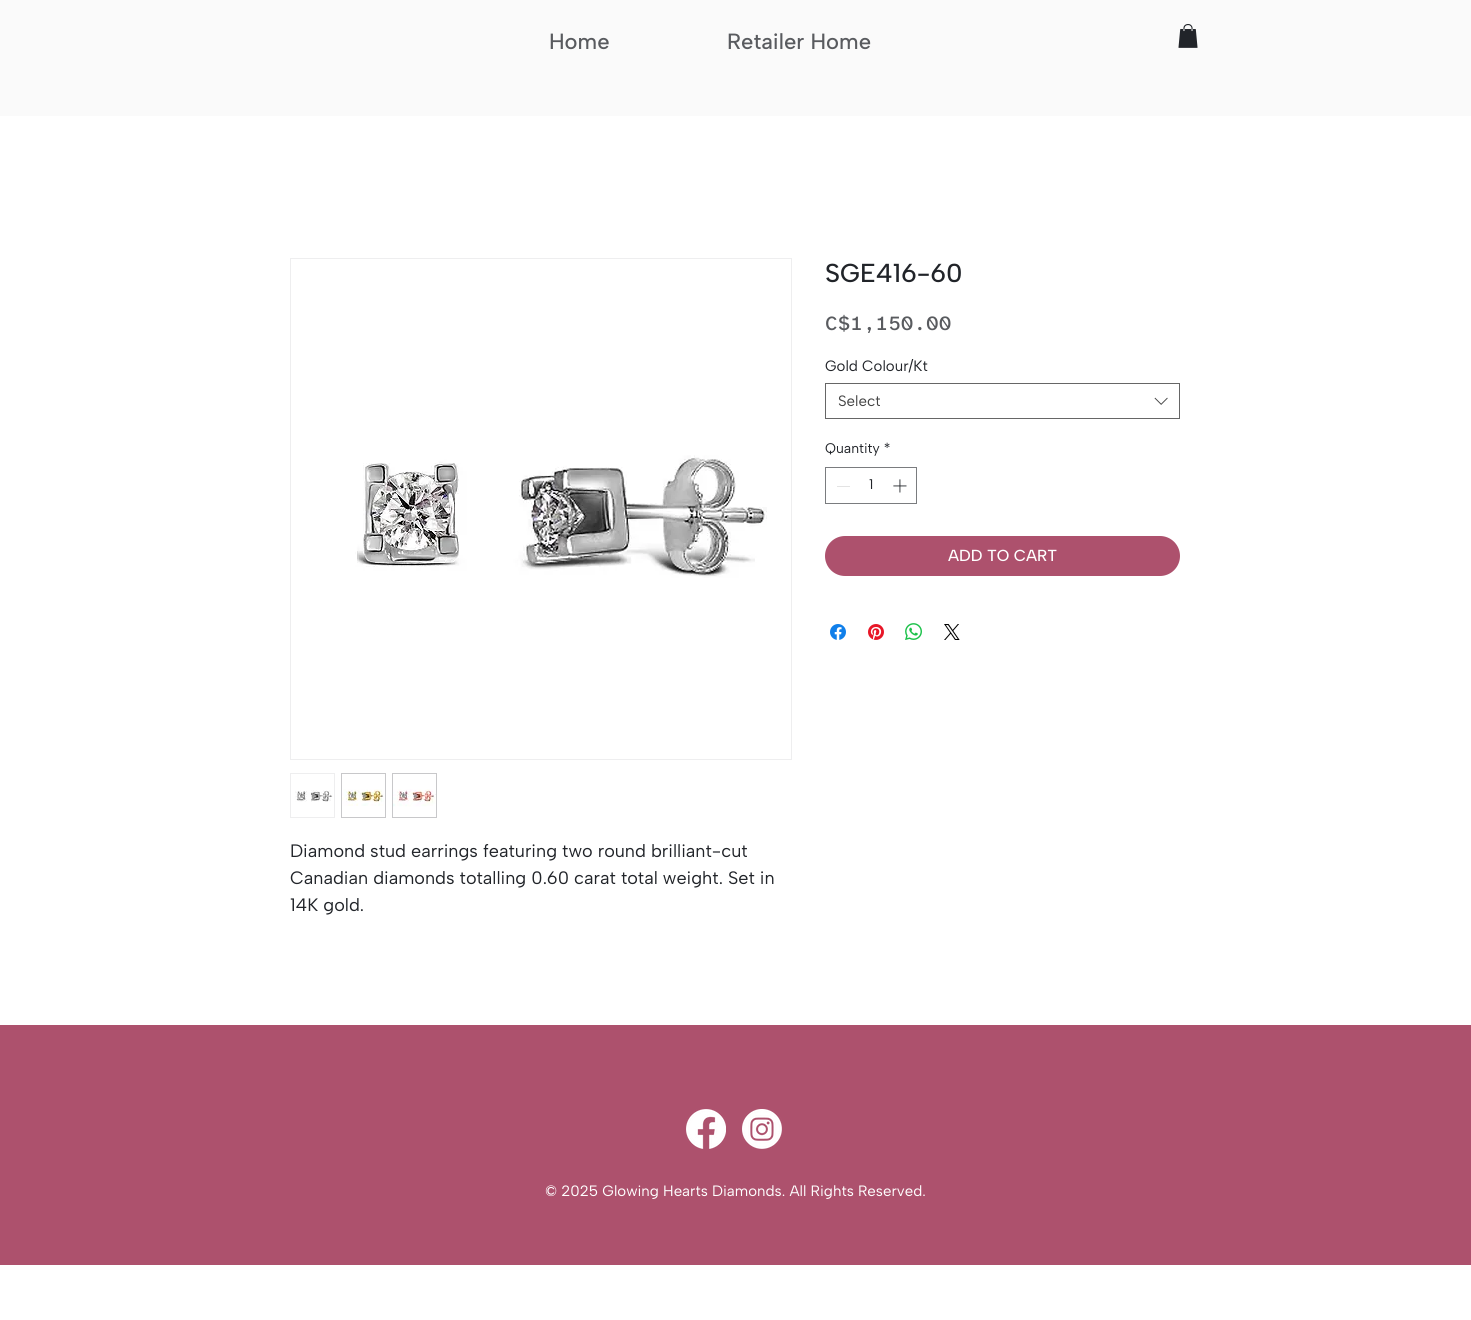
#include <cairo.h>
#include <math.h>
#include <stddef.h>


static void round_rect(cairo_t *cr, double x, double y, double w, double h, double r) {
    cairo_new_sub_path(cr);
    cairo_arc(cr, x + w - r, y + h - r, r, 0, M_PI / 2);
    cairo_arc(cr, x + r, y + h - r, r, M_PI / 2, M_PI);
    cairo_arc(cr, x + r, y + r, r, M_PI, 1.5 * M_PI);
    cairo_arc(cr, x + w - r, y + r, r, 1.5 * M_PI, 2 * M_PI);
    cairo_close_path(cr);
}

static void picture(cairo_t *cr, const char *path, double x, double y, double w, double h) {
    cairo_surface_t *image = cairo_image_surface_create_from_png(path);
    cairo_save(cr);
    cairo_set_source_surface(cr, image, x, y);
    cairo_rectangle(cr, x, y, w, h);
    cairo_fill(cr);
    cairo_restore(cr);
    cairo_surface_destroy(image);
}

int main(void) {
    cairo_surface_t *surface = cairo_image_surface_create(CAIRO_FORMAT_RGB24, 1471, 1320);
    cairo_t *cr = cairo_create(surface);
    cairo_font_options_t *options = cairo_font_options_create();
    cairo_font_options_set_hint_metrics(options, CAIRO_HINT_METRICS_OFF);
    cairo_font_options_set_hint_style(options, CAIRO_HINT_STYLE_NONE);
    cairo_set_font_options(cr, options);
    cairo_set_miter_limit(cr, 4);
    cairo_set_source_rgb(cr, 1, 1, 1);
    cairo_paint(cr);
    cairo_set_source_rgb(cr, 0.98, 0.98, 0.98);
    cairo_rectangle(cr, 0, 0, 1471, 116);
    cairo_fill(cr);
    cairo_select_font_face(cr, "Albert Sans Medium", CAIRO_FONT_SLANT_NORMAL, CAIRO_FONT_WEIGHT_NORMAL);
    cairo_set_font_size(cr, 22);
    cairo_set_source_rgb(cr, 0.349, 0.357, 0.373);
    cairo_move_to(cr, 549, 49);
    cairo_show_text(cr, "Home");
    cairo_move_to(cr, 727, 49);
    cairo_show_text(cr, "Retailer Home");
    picture(cr, "img1.png", 1178, 24, 20, 24);
    cairo_set_font_size(cr, 26);
    cairo_set_source_rgb(cr, 0.129, 0.141, 0.161);
    cairo_move_to(cr, 825, 282);
    cairo_show_text(cr, "SGE416-60");
    cairo_select_font_face(cr, "Atkinson Hyperlegible Mono Medium", CAIRO_FONT_SLANT_NORMAL, CAIRO_FONT_WEIGHT_NORMAL);
    cairo_set_font_size(cr, 20);
    cairo_set_source_rgb(cr, 0.349, 0.357, 0.373);
    cairo_move_to(cr, 825, 330);
    cairo_show_text(cr, "C$1,150.00");
    cairo_select_font_face(cr, "Albert Sans", CAIRO_FONT_SLANT_NORMAL, CAIRO_FONT_WEIGHT_NORMAL);
    cairo_set_font_size(cr, 15);
    cairo_set_source_rgb(cr, 0.129, 0.141, 0.161);
    cairo_move_to(cr, 825, 371);
    cairo_show_text(cr, "Gold Colour/Kt");
    cairo_rectangle(cr, 825.5, 383.5, 354, 35);
    cairo_set_source_rgb(cr, 0.4, 0.4, 0.4);
    cairo_set_line_width(cr, 1);
    cairo_stroke(cr);
    cairo_set_source_rgb(cr, 0.267, 0.267, 0.267);
    cairo_move_to(cr, 838, 406);
    cairo_show_text(cr, "Select");
    picture(cr, "img2.png", 1154, 397, 14, 8);
    cairo_set_font_size(cr, 14);
    cairo_set_source_rgb(cr, 0.129, 0.141, 0.161);
    cairo_move_to(cr, 825, 453);
    cairo_show_text(cr, "Quantity *");
    cairo_rectangle(cr, 825.5, 467.5, 91, 36);
    cairo_set_source_rgb(cr, 0.478, 0.486, 0.498);
    cairo_stroke(cr);
    cairo_set_source_rgb(cr, 0.89, 0.89, 0.89);
    cairo_rectangle(cr, 837, 486, 13, 1);
    cairo_fill(cr);
    cairo_set_source_rgb(cr, 0.129, 0.141, 0.161);
    cairo_move_to(cr, 869, 489);
    cairo_show_text(cr, "1");
    picture(cr, "img3.png", 893, 479, 14, 14);
    cairo_set_source_rgb(cr, 0.678, 0.318, 0.427);
    round_rect(cr, 825, 536, 355, 40, 20);
    cairo_fill(cr);
    cairo_select_font_face(cr, "Albert Sans Medium", CAIRO_FONT_SLANT_NORMAL, CAIRO_FONT_WEIGHT_NORMAL);
    cairo_set_font_size(cr, 16);
    cairo_set_source_rgb(cr, 1, 1, 1);
    cairo_move_to(cr, 948, 561);
    cairo_show_text(cr, "ADD TO CART");
    picture(cr, "img4.png", 830, 624, 16, 16);
    picture(cr, "img5.png", 868, 624, 16, 16);
    picture(cr, "img6.png", 905, 623, 17, 17);
    picture(cr, "img7.png", 944, 624, 16, 16);
    cairo_rectangle(cr, 290.5, 258.5, 501, 501);
    cairo_set_source_rgb(cr, 0.933, 0.933, 0.937);
    cairo_stroke(cr);
    picture(cr, "img8.png", 355, 455, 412, 123);
    cairo_rectangle(cr, 290.5, 773.5, 44, 44);
    cairo_stroke(cr);
    picture(cr, "img9.png", 295, 790, 38, 12);
    cairo_rectangle(cr, 341.5, 773.5, 44, 44);
    cairo_set_source_rgb(cr, 0.784, 0.784, 0.792);
    cairo_stroke(cr);
    picture(cr, "img10.png", 342, 789, 42, 17);
    cairo_rectangle(cr, 392.5, 773.5, 44, 44);
    cairo_stroke(cr);
    picture(cr, "img11.png", 393, 789, 43, 18);
    cairo_select_font_face(cr, "Albert Sans", CAIRO_FONT_SLANT_NORMAL, CAIRO_FONT_WEIGHT_NORMAL);
    cairo_set_font_size(cr, 18);
    cairo_set_source_rgb(cr, 0.129, 0.141, 0.161);
    cairo_move_to(cr, 290, 857);
    cairo_show_text(cr, "Diamond stud earrings featuring two round brilliant-cut");
    cairo_move_to(cr, 290, 884);
    cairo_show_text(cr, "Canadian diamonds totalling 0.60 carat total weight. Set in");
    cairo_move_to(cr, 290, 911);
    cairo_show_text(cr, "14K gold.");
    cairo_set_source_rgb(cr, 0.678, 0.318, 0.427);
    cairo_rectangle(cr, 0, 1025, 1471, 240);
    cairo_fill(cr);
    picture(cr, "img12.png", 686, 1109, 40, 40);
    picture(cr, "img13.png", 742, 1109, 40, 40);
    cairo_set_font_size(cr, 15);
    cairo_set_source_rgb(cr, 1, 1, 1);
    cairo_move_to(cr, 545, 1196);
    cairo_show_text(cr, "© 2025 Glowing Hearts Diamonds. All Rights Reserved.");
    cairo_surface_write_to_png(surface, "page.png");
    cairo_font_options_destroy(options);
    cairo_destroy(cr);
    cairo_surface_destroy(surface);
    return 0;
}
